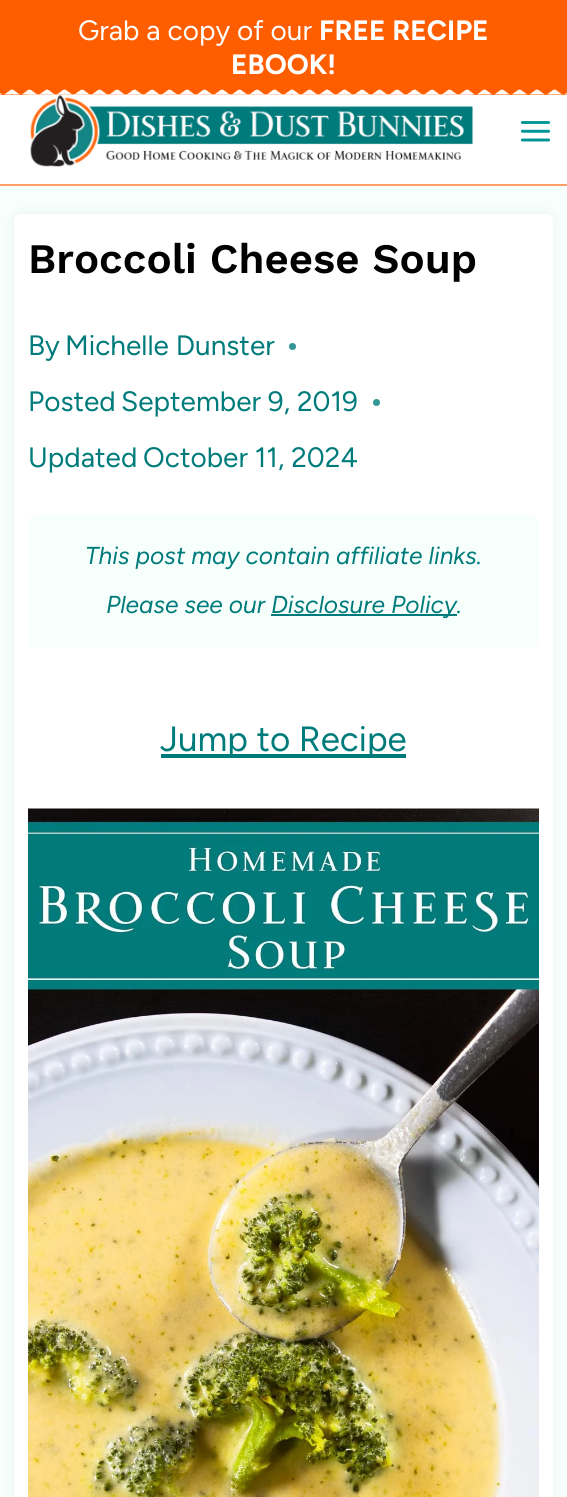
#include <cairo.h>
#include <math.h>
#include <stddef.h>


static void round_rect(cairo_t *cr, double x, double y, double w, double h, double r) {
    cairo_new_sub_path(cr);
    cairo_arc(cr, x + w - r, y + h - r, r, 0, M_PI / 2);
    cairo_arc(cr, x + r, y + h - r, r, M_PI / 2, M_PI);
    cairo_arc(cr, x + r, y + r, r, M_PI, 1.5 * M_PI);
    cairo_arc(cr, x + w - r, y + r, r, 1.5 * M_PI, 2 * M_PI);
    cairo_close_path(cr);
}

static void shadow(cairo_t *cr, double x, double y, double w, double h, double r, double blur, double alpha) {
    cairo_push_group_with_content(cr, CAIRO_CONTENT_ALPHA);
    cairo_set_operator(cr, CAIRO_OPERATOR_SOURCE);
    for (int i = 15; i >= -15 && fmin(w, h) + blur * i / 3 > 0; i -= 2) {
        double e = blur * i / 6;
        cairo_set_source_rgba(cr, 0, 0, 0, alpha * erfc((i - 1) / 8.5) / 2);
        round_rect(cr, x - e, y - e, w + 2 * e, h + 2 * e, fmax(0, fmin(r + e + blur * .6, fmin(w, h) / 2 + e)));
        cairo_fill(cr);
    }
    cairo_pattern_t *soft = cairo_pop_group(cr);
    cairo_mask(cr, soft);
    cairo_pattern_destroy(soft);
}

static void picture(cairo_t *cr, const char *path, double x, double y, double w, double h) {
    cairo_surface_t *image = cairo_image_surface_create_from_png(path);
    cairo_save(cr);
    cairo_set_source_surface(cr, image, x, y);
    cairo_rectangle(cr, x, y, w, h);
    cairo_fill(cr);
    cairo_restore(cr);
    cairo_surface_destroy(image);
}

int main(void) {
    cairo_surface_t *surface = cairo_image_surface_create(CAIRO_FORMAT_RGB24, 567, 1497);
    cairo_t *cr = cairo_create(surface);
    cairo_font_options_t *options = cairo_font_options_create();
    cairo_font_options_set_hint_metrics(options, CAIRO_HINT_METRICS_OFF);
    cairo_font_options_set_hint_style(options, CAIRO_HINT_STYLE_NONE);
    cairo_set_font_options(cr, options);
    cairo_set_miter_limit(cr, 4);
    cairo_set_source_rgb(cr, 0.961, 1, 0.984);
    cairo_paint(cr);
    cairo_set_source_rgb(cr, 1, 1, 1);
    cairo_rectangle(cr, 0, 95, 567, 89);
    cairo_fill(cr);
    cairo_set_source_rgb(cr, 1, 0.369, 0);
    cairo_rectangle(cr, 0, 0, 567, 95);
    cairo_fill(cr);
    picture(cr, "img1.png", 0, 89, 567, 6);
    cairo_select_font_face(cr, "Figtree Light", CAIRO_FONT_SLANT_NORMAL, CAIRO_FONT_WEIGHT_NORMAL);
    cairo_set_font_size(cr, 28);
    cairo_set_source_rgb(cr, 1, 1, 1);
    cairo_move_to(cr, 78, 40);
    cairo_show_text(cr, "Grab a copy of our");
    cairo_select_font_face(cr, "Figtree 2 Light", CAIRO_FONT_SLANT_NORMAL, CAIRO_FONT_WEIGHT_NORMAL);
    cairo_move_to(cr, 319, 40);
    cairo_show_text(cr, "FREE RECIPE");
    cairo_move_to(cr, 231, 74);
    cairo_show_text(cr, "EBOOK!");
    cairo_set_source_rgb(cr, 1, 0.62, 0.404);
    cairo_rectangle(cr, 0, 184, 567, 2);
    cairo_fill(cr);
    picture(cr, "img2.png", 26, 94, 447, 73);
    picture(cr, "img3.png", 520, 121, 31, 21);
    cairo_set_source_rgb(cr, 0, 0, 0);
    shadow(cr, 14, 214, 539, 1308, 7, 6, 0.05);
    cairo_set_source_rgb(cr, 1, 1, 1);
    round_rect(cr, 14, 214, 539, 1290, 7);
    cairo_fill(cr);
    cairo_select_font_face(cr, "Work Sans SemiBold", CAIRO_FONT_SLANT_NORMAL, CAIRO_FONT_WEIGHT_NORMAL);
    cairo_set_font_size(cr, 42);
    cairo_set_source_rgb(cr, 0, 0, 0);
    cairo_move_to(cr, 28, 273);
    cairo_show_text(cr, "Broccoli Cheese Soup");
    cairo_select_font_face(cr, "Figtree Light", CAIRO_FONT_SLANT_NORMAL, CAIRO_FONT_WEIGHT_NORMAL);
    cairo_set_font_size(cr, 28);
    cairo_set_source_rgb(cr, 0, 0.482, 0.482);
    cairo_move_to(cr, 28, 355);
    cairo_show_text(cr, "By");
    cairo_move_to(cr, 65, 355);
    cairo_show_text(cr, "Michelle Dunster");
    cairo_set_source_rgb(cr, 0.2, 0.584, 0.584);
    cairo_new_path(cr);
    cairo_arc(cr, 292.5, 346.5, 3.5, 0, 2 * M_PI);
    cairo_fill(cr);
    cairo_set_source_rgb(cr, 0, 0.482, 0.482);
    cairo_move_to(cr, 28, 411);
    cairo_show_text(cr, "Posted");
    cairo_move_to(cr, 121, 411);
    cairo_show_text(cr, "September 9, 2019");
    cairo_set_source_rgb(cr, 0.2, 0.584, 0.584);
    cairo_new_path(cr);
    cairo_arc(cr, 376.5, 402.5, 3.5, 0, 2 * M_PI);
    cairo_fill(cr);
    cairo_set_source_rgb(cr, 0, 0.482, 0.482);
    cairo_move_to(cr, 28, 467);
    cairo_show_text(cr, "Updated");
    cairo_move_to(cr, 143, 467);
    cairo_show_text(cr, "October 11, 2024");
    cairo_set_source_rgb(cr, 0.961, 1, 0.984);
    round_rect(cr, 28, 515, 511, 133, 9);
    cairo_fill(cr);
    cairo_select_font_face(cr, "Figtree Light", CAIRO_FONT_SLANT_ITALIC, CAIRO_FONT_WEIGHT_NORMAL);
    cairo_set_font_size(cr, 24.5);
    cairo_set_source_rgb(cr, 0, 0.482, 0.482);
    cairo_move_to(cr, 85, 564);
    cairo_show_text(cr, "This post may contain affiliate links.");
    cairo_move_to(cr, 106, 613);
    cairo_show_text(cr, "Please see our");
    cairo_rectangle(cr, 271, 614, 186, 2);
    cairo_fill(cr);
    cairo_move_to(cr, 271, 613);
    cairo_show_text(cr, "Disclosure Policy.");
    cairo_rectangle(cr, 161, 754, 245, 4);
    cairo_fill(cr);
    cairo_select_font_face(cr, "Figtree Light", CAIRO_FONT_SLANT_NORMAL, CAIRO_FONT_WEIGHT_NORMAL);
    cairo_set_font_size(cr, 35);
    cairo_move_to(cr, 160, 751);
    cairo_show_text(cr, "Jump to Recipe");
    picture(cr, "img4.png", 28, 808, 511, 689);
    cairo_surface_write_to_png(surface, "page.png");
    cairo_font_options_destroy(options);
    cairo_destroy(cr);
    cairo_surface_destroy(surface);
    return 0;
}
